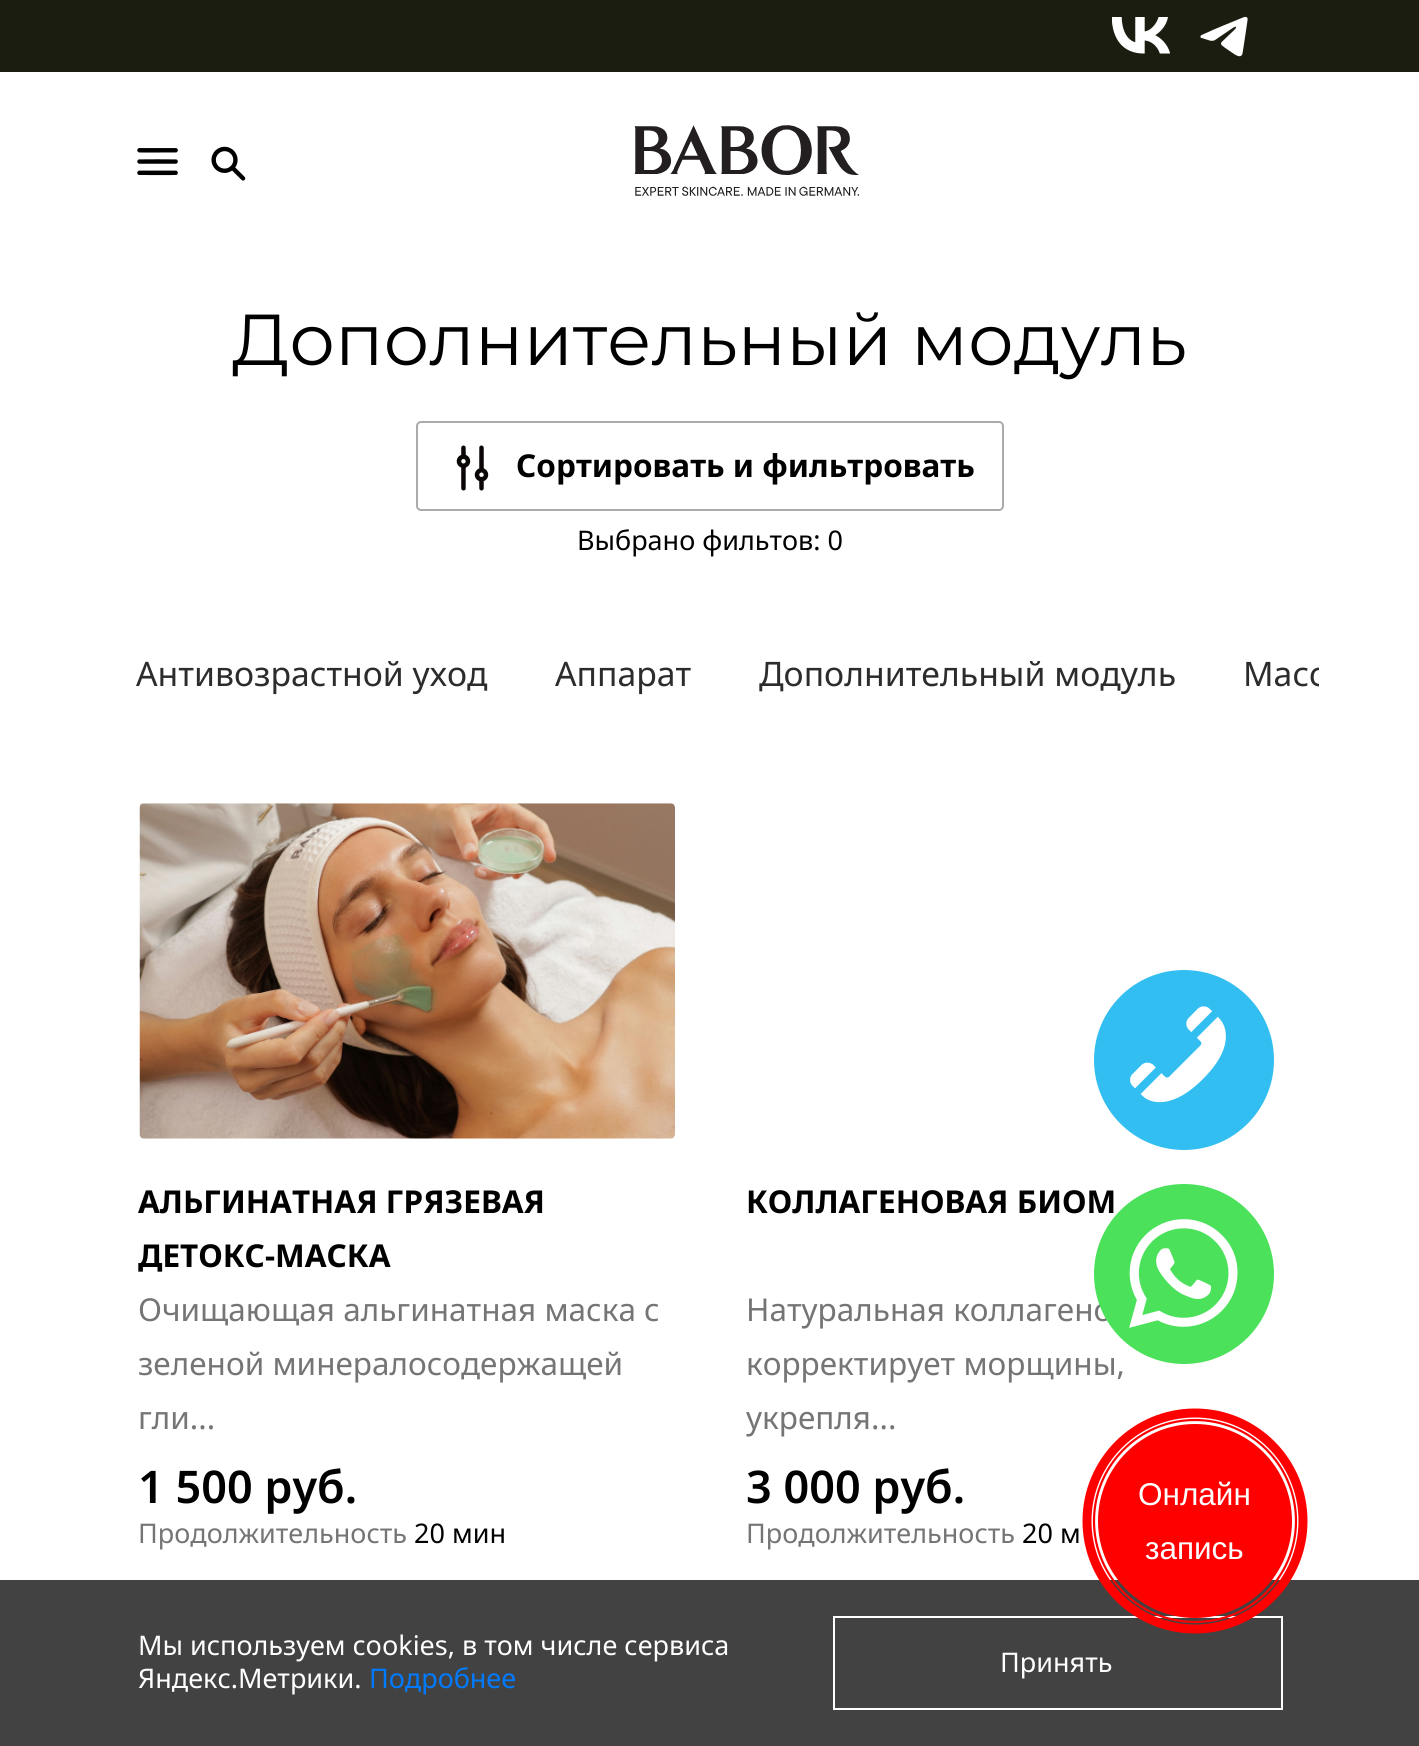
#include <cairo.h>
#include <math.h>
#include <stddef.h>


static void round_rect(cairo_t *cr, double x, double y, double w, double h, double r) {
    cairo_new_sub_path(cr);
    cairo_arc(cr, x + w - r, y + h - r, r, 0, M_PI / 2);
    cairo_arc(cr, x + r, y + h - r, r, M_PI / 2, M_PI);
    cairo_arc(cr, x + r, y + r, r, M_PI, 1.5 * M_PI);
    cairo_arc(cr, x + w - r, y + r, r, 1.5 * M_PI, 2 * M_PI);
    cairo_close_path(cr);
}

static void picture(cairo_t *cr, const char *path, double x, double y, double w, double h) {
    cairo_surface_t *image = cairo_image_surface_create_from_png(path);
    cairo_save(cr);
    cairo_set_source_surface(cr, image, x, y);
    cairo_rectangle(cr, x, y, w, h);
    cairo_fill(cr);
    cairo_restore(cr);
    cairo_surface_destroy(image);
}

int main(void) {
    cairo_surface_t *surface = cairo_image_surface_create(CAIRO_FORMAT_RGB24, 1419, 1746);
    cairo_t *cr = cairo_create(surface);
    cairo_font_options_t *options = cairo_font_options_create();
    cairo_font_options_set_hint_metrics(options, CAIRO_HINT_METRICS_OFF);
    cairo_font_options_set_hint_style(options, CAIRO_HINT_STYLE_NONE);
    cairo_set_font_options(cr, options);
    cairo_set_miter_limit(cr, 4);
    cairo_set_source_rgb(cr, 1, 1, 1);
    cairo_paint(cr);
    cairo_set_source_rgb(cr, 0.11, 0.114, 0.067);
    cairo_rectangle(cr, 0, 0, 1419, 72);
    cairo_fill(cr);
    picture(cr, "img1.png", 1112, 17, 58, 37);
    picture(cr, "img2.png", 1200, 16, 48, 41);
    picture(cr, "img3.png", 137, 148, 41, 28);
    picture(cr, "img4.png", 211, 146, 35, 35);
    picture(cr, "img5.png", 634, 125, 226, 71);
    cairo_select_font_face(cr, "Montserrat", CAIRO_FONT_SLANT_NORMAL, CAIRO_FONT_WEIGHT_NORMAL);
    cairo_set_font_size(cr, 72);
    cairo_set_source_rgb(cr, 0, 0, 0);
    cairo_move_to(cr, 232, 365);
    cairo_show_text(cr, "Дополнительный модуль");
    round_rect(cr, 417, 422, 586, 88, 4);
    cairo_set_source_rgb(cr, 0.671, 0.671, 0.671);
    cairo_stroke(cr);
    picture(cr, "img6.png", 456, 445, 33, 46);
    cairo_select_font_face(cr, "Noto Sans", CAIRO_FONT_SLANT_NORMAL, CAIRO_FONT_WEIGHT_BOLD);
    cairo_set_font_size(cr, 31.5);
    cairo_set_source_rgb(cr, 0, 0, 0);
    cairo_move_to(cr, 516, 477);
    cairo_show_text(cr, "Сортировать и фильтровать");
    cairo_select_font_face(cr, "Noto Sans", CAIRO_FONT_SLANT_NORMAL, CAIRO_FONT_WEIGHT_NORMAL);
    cairo_set_font_size(cr, 27);
    cairo_move_to(cr, 577, 550);
    cairo_show_text(cr, "Выбрано фильтов: 0");
    cairo_set_font_size(cr, 33.75);
    cairo_set_source_rgb(cr, 0.173, 0.173, 0.173);
    cairo_move_to(cr, 136, 686);
    cairo_show_text(cr, "Антивозрастной уход");
    cairo_move_to(cr, 555, 686);
    cairo_show_text(cr, "Аппарат");
    cairo_move_to(cr, 759, 686);
    cairo_show_text(cr, "Дополнительный модуль");
    cairo_save(cr);
    cairo_rectangle(cr, 104, 648, 1215, 79);
    cairo_clip(cr);
    cairo_move_to(cr, 1243, 686);
    cairo_show_text(cr, "Масс");
    cairo_restore(cr);
    picture(cr, "img7.png", 139, 803, 536, 336);
    cairo_select_font_face(cr, "Noto Sans", CAIRO_FONT_SLANT_NORMAL, CAIRO_FONT_WEIGHT_BOLD);
    cairo_set_font_size(cr, 31.5);
    cairo_set_source_rgb(cr, 0, 0, 0);
    cairo_move_to(cr, 138, 1213);
    cairo_show_text(cr, "АЛЬГИНАТНАЯ ГРЯЗЕВАЯ");
    cairo_move_to(cr, 138, 1267);
    cairo_show_text(cr, "ДЕТОКС-МАСКА");
    cairo_select_font_face(cr, "Noto Sans", CAIRO_FONT_SLANT_NORMAL, CAIRO_FONT_WEIGHT_NORMAL);
    cairo_set_source_rgb(cr, 0.459, 0.459, 0.459);
    cairo_move_to(cr, 138, 1321);
    cairo_show_text(cr, "Очищающая альгинатная маска с");
    cairo_move_to(cr, 138, 1375);
    cairo_show_text(cr, "зеленой минералосодержащей");
    cairo_move_to(cr, 138, 1429);
    cairo_show_text(cr, "гли...");
    cairo_select_font_face(cr, "Noto Sans SemiBold", CAIRO_FONT_SLANT_NORMAL, CAIRO_FONT_WEIGHT_NORMAL);
    cairo_set_font_size(cr, 45);
    cairo_set_source_rgb(cr, 0, 0, 0);
    cairo_move_to(cr, 138, 1503);
    cairo_show_text(cr, "1 500 руб.");
    cairo_select_font_face(cr, "Noto Sans", CAIRO_FONT_SLANT_NORMAL, CAIRO_FONT_WEIGHT_NORMAL);
    cairo_set_font_size(cr, 27);
    cairo_set_source_rgb(cr, 0.459, 0.459, 0.459);
    cairo_move_to(cr, 138, 1543);
    cairo_show_text(cr, "Продолжительность");
    cairo_set_source_rgb(cr, 0, 0, 0);
    cairo_move_to(cr, 414, 1543);
    cairo_show_text(cr, "20 мин");
    cairo_select_font_face(cr, "Noto Sans", CAIRO_FONT_SLANT_NORMAL, CAIRO_FONT_WEIGHT_BOLD);
    cairo_set_font_size(cr, 31.5);
    cairo_move_to(cr, 746, 1213);
    cairo_show_text(cr, "КОЛЛАГЕНОВАЯ БИОМ");
    cairo_select_font_face(cr, "Noto Sans", CAIRO_FONT_SLANT_NORMAL, CAIRO_FONT_WEIGHT_NORMAL);
    cairo_set_source_rgb(cr, 0.459, 0.459, 0.459);
    cairo_move_to(cr, 746, 1321);
    cairo_show_text(cr, "Натуральная коллагено");
    cairo_move_to(cr, 746, 1375);
    cairo_show_text(cr, "корректирует морщины,");
    cairo_move_to(cr, 746, 1429);
    cairo_show_text(cr, "укрепля...");
    cairo_select_font_face(cr, "Noto Sans SemiBold", CAIRO_FONT_SLANT_NORMAL, CAIRO_FONT_WEIGHT_NORMAL);
    cairo_set_font_size(cr, 45);
    cairo_set_source_rgb(cr, 0, 0, 0);
    cairo_move_to(cr, 746, 1503);
    cairo_show_text(cr, "3 000 руб.");
    cairo_select_font_face(cr, "Noto Sans", CAIRO_FONT_SLANT_NORMAL, CAIRO_FONT_WEIGHT_NORMAL);
    cairo_set_font_size(cr, 27);
    cairo_set_source_rgb(cr, 0.459, 0.459, 0.459);
    cairo_move_to(cr, 746, 1543);
    cairo_show_text(cr, "Продолжительность");
    cairo_set_source_rgb(cr, 0, 0, 0);
    cairo_move_to(cr, 1022, 1543);
    cairo_show_text(cr, "20 м");
    cairo_set_source_rgb(cr, 0.2, 0.745, 0.949);
    cairo_new_path(cr);
    cairo_arc(cr, 1184, 1060, 90, 0, 2 * M_PI);
    cairo_fill(cr);
    picture(cr, "img8.png", 1130, 1006, 96, 97);
    cairo_set_source_rgb(cr, 0.294, 0.882, 0.353);
    cairo_arc(cr, 1184, 1274, 90, 0, 2 * M_PI);
    cairo_fill(cr);
    picture(cr, "img9.png", 1129, 1219, 109, 109);
    cairo_set_source_rgb(cr, 0.259, 0.259, 0.259);
    cairo_rectangle(cr, 0, 1580, 1419, 166);
    cairo_fill(cr);
    cairo_rectangle(cr, 834, 1617, 448, 92);
    cairo_set_source_rgb(cr, 1, 1, 1);
    cairo_stroke(cr);
    cairo_set_source_rgb(cr, 1, 0, 0);
    cairo_arc(cr, 1195, 1521, 97, 0, 2 * M_PI);
    cairo_fill(cr);
    cairo_arc(cr, 1195, 1521, 108, 0, 2 * M_PI);
    cairo_set_line_width(cr, 9);
    cairo_stroke(cr);
    cairo_arc(cr, 1195, 1521, 101, 0, 2 * M_PI);
    cairo_set_line_width(cr, 2.2);
    cairo_stroke(cr);
    cairo_select_font_face(cr, "Liberation Sans", CAIRO_FONT_SLANT_NORMAL, CAIRO_FONT_WEIGHT_NORMAL);
    cairo_set_font_size(cr, 31.5);
    cairo_set_source_rgb(cr, 1, 1, 1);
    cairo_move_to(cr, 1138, 1505);
    cairo_show_text(cr, "Онлайн");
    cairo_move_to(cr, 1145, 1559);
    cairo_show_text(cr, "запись");
    cairo_select_font_face(cr, "Noto Sans", CAIRO_FONT_SLANT_NORMAL, CAIRO_FONT_WEIGHT_NORMAL);
    cairo_set_font_size(cr, 27);
    cairo_move_to(cr, 138, 1655);
    cairo_show_text(cr, "Мы используем cookies, в том числе сервиса");
    cairo_move_to(cr, 138, 1688);
    cairo_show_text(cr, "Яндекс.Метрики.");
    cairo_set_source_rgb(cr, 0, 0.482, 1);
    cairo_move_to(cr, 369, 1688);
    cairo_show_text(cr, "Подробнее");
    cairo_set_source_rgb(cr, 1, 1, 1);
    cairo_move_to(cr, 1000, 1672);
    cairo_show_text(cr, "Принять");
    cairo_surface_write_to_png(surface, "page.png");
    cairo_font_options_destroy(options);
    cairo_destroy(cr);
    cairo_surface_destroy(surface);
    return 0;
}
